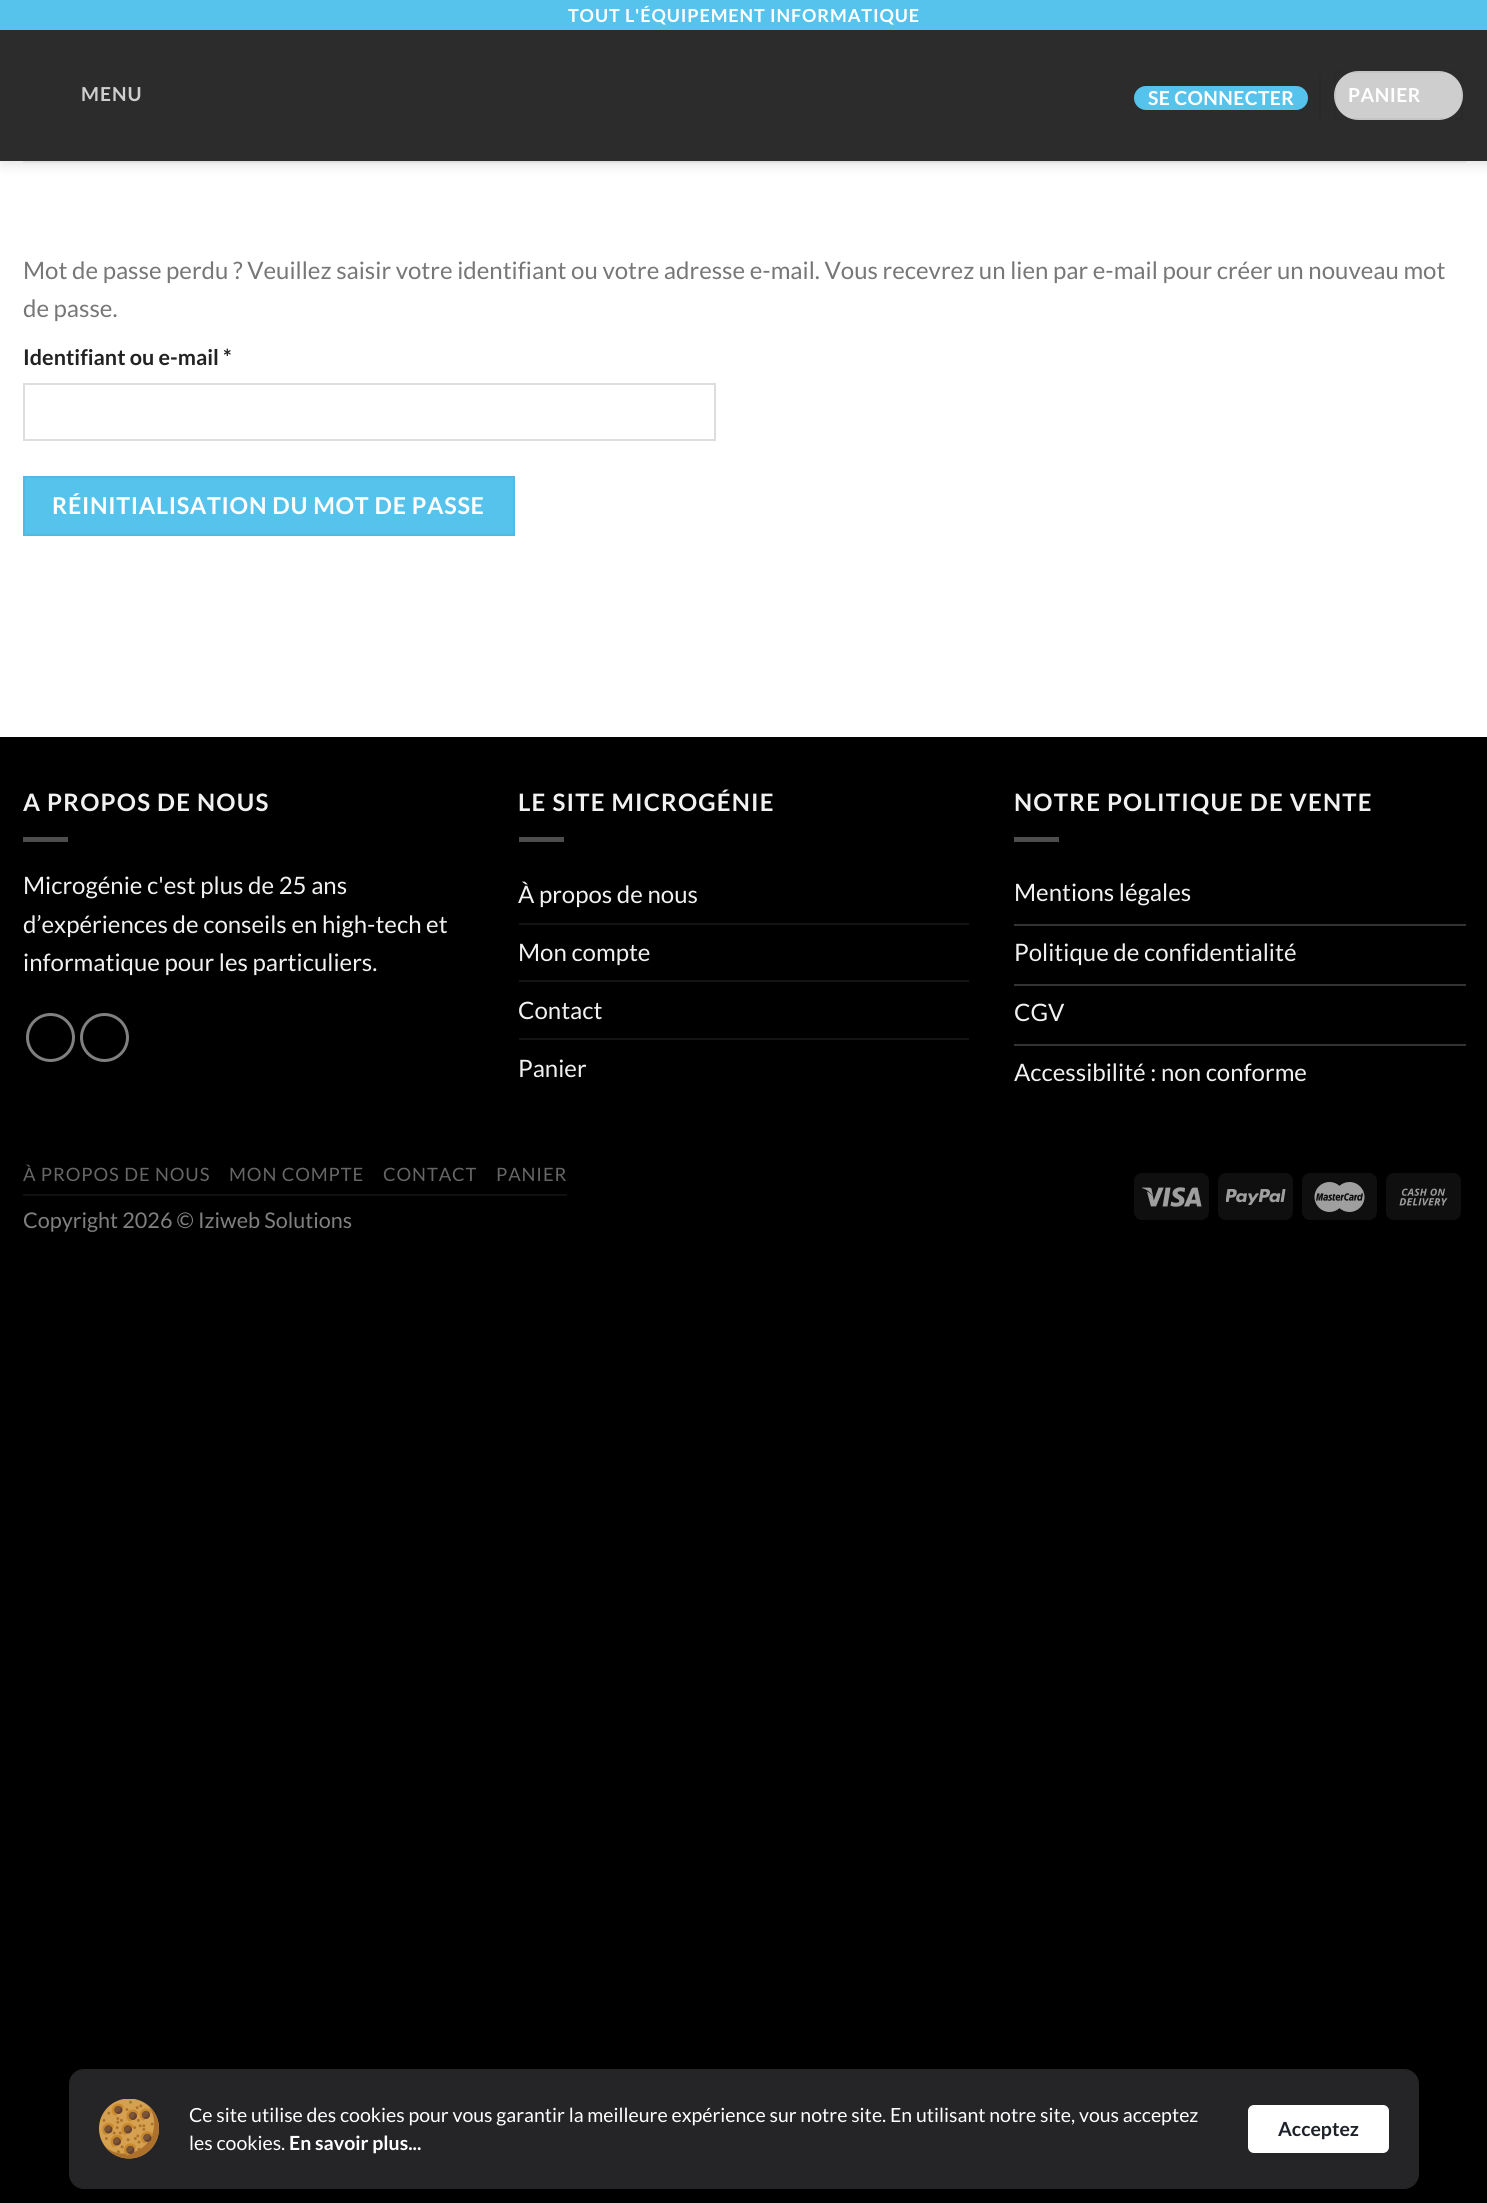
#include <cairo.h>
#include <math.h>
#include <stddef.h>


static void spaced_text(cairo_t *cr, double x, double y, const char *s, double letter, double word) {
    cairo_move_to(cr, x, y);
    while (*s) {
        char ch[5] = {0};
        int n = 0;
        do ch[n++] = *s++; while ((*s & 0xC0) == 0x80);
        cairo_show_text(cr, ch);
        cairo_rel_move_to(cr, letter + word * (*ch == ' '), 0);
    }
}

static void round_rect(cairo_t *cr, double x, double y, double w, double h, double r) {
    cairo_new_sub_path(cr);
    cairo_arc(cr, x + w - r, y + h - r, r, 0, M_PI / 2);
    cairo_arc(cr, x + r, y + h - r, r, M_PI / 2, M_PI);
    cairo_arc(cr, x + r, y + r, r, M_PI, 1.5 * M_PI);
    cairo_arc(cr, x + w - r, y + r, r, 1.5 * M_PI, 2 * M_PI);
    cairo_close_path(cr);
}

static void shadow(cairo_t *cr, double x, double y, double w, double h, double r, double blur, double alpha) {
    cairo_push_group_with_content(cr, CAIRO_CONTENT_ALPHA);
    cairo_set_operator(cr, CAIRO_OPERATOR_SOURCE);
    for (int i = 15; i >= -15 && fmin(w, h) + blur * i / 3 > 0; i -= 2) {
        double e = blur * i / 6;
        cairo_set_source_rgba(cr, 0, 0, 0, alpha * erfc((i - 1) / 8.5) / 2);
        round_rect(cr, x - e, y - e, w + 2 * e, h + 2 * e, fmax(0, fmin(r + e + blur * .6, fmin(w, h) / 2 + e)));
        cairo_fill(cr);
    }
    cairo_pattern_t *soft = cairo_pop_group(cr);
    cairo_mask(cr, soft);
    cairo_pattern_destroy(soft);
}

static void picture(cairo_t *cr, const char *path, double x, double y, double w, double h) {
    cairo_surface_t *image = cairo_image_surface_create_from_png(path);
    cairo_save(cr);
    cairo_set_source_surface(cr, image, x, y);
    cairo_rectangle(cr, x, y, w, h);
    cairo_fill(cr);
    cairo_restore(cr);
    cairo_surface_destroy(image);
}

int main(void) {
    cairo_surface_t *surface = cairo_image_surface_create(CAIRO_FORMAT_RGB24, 1487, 2203);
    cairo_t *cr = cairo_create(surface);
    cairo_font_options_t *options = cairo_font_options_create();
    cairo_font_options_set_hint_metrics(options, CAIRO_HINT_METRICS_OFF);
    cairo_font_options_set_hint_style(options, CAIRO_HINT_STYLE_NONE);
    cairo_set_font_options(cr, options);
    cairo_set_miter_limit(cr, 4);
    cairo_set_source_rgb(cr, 0, 0, 0);
    cairo_paint(cr);
    cairo_set_source_rgb(cr, 1, 1, 1);
    cairo_rectangle(cr, 0, 30, 1487, 707);
    cairo_fill(cr);
    cairo_save(cr);
    cairo_set_fill_rule(cr, CAIRO_FILL_RULE_EVEN_ODD);
    cairo_new_path(cr);
    cairo_move_to(cr, 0, 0);
    cairo_line_to(cr, 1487, 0);
    cairo_line_to(cr, 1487, 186);
    cairo_line_to(cr, 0, 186);
    cairo_close_path(cr);
    cairo_move_to(cr, 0, 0);
    cairo_line_to(cr, 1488, 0);
    cairo_line_to(cr, 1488, 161);
    cairo_line_to(cr, 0, 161);
    cairo_close_path(cr);
    cairo_clip(cr);
    cairo_set_source_rgb(cr, 0, 0, 0);
    shadow(cr, 2, 2, 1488, 160, 0, 7.5, 0.15);
    cairo_restore(cr);
    cairo_set_source_rgb(cr, 0.337, 0.765, 0.925);
    cairo_rectangle(cr, 0, 0, 1487, 30);
    cairo_fill(cr);
    cairo_select_font_face(cr, "Lato", CAIRO_FONT_SLANT_NORMAL, CAIRO_FONT_WEIGHT_BOLD);
    cairo_set_font_size(cr, 18);
    cairo_set_source_rgb(cr, 1, 1, 1);
    spaced_text(cr, 568, 22, "TOUT L'ÉQUIPEMENT INFORMATIQUE", 0.9, 0);
    cairo_set_source_rgba(cr, 0.086, 0.086, 0.086, 0.9);
    cairo_rectangle(cr, 0, 30, 1487, 131);
    cairo_fill(cr);
    cairo_set_font_size(cr, 19.25);
    cairo_set_source_rgb(cr, 0.808, 0.808, 0.808);
    spaced_text(cr, 81, 101, "MENU", 1, 0);
    cairo_set_source_rgb(cr, 0.337, 0.765, 0.925);
    round_rect(cr, 1134, 86, 174, 24, 12);
    cairo_fill(cr);
    cairo_set_source_rgb(cr, 1, 1, 1);
    spaced_text(cr, 1148, 105, "SE CONNECTER", 0.4, 0);
    cairo_set_source_rgb(cr, 0.161, 0.161, 0.161);
    cairo_rectangle(cr, 1319, 74, 2, 45);
    cairo_fill(cr);
    cairo_set_source_rgb(cr, 0.808, 0.808, 0.808);
    round_rect(cr, 1334, 71, 129, 49, 24.5);
    cairo_fill(cr);
    cairo_rectangle(cr, 1335, 72, 127, 47);
    cairo_set_source_rgba(cr, 0, 0, 0, 0.05);
    cairo_stroke(cr);
    cairo_set_source_rgb(cr, 1, 1, 1);
    spaced_text(cr, 1348, 102, "PANIER", 0.5, 0);
    cairo_set_source_rgb(cr, 0.878, 0.878, 0.878);
    cairo_rectangle(cr, 23, 161, 1443, 2);
    cairo_fill(cr);
    cairo_select_font_face(cr, "Lato", CAIRO_FONT_SLANT_NORMAL, CAIRO_FONT_WEIGHT_NORMAL);
    cairo_set_font_size(cr, 24);
    cairo_set_source_rgb(cr, 0.467, 0.467, 0.467);
    cairo_move_to(cr, 23, 279);
    cairo_show_text(cr, "Mot de passe perdu ? Veuillez saisir votre identifiant ou votre adresse e-mail. Vous recevrez un lien par e-mail pour créer un nouveau mot");
    cairo_move_to(cr, 23, 317);
    cairo_show_text(cr, "de passe.");
    cairo_select_font_face(cr, "Lato", CAIRO_FONT_SLANT_NORMAL, CAIRO_FONT_WEIGHT_BOLD);
    cairo_set_font_size(cr, 21.6);
    cairo_set_source_rgb(cr, 0.133, 0.133, 0.133);
    cairo_move_to(cr, 23, 365);
    cairo_show_text(cr, "Identifiant ou e-mail *");
    cairo_rectangle(cr, 24, 384, 691, 56);
    cairo_set_source_rgb(cr, 0.867, 0.867, 0.867);
    cairo_stroke(cr);
    cairo_set_source_rgb(cr, 0.337, 0.765, 0.925);
    cairo_rectangle(cr, 24, 477, 490, 58);
    cairo_fill_preserve(cr);
    cairo_set_source_rgb(cr, 0.322, 0.725, 0.878);
    cairo_stroke(cr);
    cairo_set_font_size(cr, 23.25);
    cairo_set_source_rgb(cr, 1, 1, 1);
    spaced_text(cr, 52, 514, "RÉINITIALISATION DU MOT DE PASSE", 0.7, 0);
    cairo_set_font_size(cr, 24);
    cairo_set_source_rgb(cr, 0.945, 0.945, 0.945);
    spaced_text(cr, 23, 811, "A PROPOS DE NOUS", 1.2, 0);
    cairo_set_source_rgb(cr, 0.302, 0.302, 0.302);
    cairo_rectangle(cr, 23, 837, 45, 5);
    cairo_fill(cr);
    cairo_select_font_face(cr, "Lato", CAIRO_FONT_SLANT_NORMAL, CAIRO_FONT_WEIGHT_NORMAL);
    cairo_set_source_rgb(cr, 0.945, 0.945, 0.945);
    cairo_move_to(cr, 23, 894);
    cairo_show_text(cr, "Microgénie c'est plus de 25 ans");
    cairo_move_to(cr, 23, 933);
    cairo_show_text(cr, "d’expériences de conseils en high-tech et");
    cairo_move_to(cr, 23, 971);
    cairo_show_text(cr, "informatique pour les particuliers.");
    cairo_new_path(cr);
    cairo_arc(cr, 50.5, 1037.5, 23, 0, 2 * M_PI);
    cairo_set_source_rgb(cr, 0.502, 0.502, 0.502);
    cairo_set_line_width(cr, 3);
    cairo_stroke(cr);
    cairo_arc(cr, 104.5, 1037.5, 23, 0, 2 * M_PI);
    cairo_stroke(cr);
    cairo_select_font_face(cr, "Lato", CAIRO_FONT_SLANT_NORMAL, CAIRO_FONT_WEIGHT_BOLD);
    cairo_set_source_rgb(cr, 0.945, 0.945, 0.945);
    spaced_text(cr, 518, 811, "LE SITE MICROGÉNIE", 1.2, 0);
    cairo_set_source_rgb(cr, 0.302, 0.302, 0.302);
    cairo_rectangle(cr, 519, 837, 45, 5);
    cairo_fill(cr);
    cairo_select_font_face(cr, "Lato", CAIRO_FONT_SLANT_NORMAL, CAIRO_FONT_WEIGHT_NORMAL);
    cairo_set_source_rgb(cr, 0.945, 0.945, 0.945);
    cairo_move_to(cr, 518, 903);
    cairo_show_text(cr, "À propos de nous");
    cairo_set_source_rgb(cr, 0.078, 0.078, 0.078);
    cairo_rectangle(cr, 519, 923, 450, 2);
    cairo_fill(cr);
    cairo_set_source_rgb(cr, 0.945, 0.945, 0.945);
    cairo_move_to(cr, 518, 961);
    cairo_show_text(cr, "Mon compte");
    cairo_set_source_rgb(cr, 0.078, 0.078, 0.078);
    cairo_rectangle(cr, 519, 980, 450, 2);
    cairo_fill(cr);
    cairo_set_source_rgb(cr, 0.945, 0.945, 0.945);
    cairo_move_to(cr, 518, 1019);
    cairo_show_text(cr, "Contact");
    cairo_set_source_rgb(cr, 0.078, 0.078, 0.078);
    cairo_rectangle(cr, 519, 1038, 450, 2);
    cairo_fill(cr);
    cairo_set_source_rgb(cr, 0.945, 0.945, 0.945);
    cairo_move_to(cr, 518, 1077);
    cairo_show_text(cr, "Panier");
    cairo_select_font_face(cr, "Lato", CAIRO_FONT_SLANT_NORMAL, CAIRO_FONT_WEIGHT_BOLD);
    spaced_text(cr, 1014, 811, "NOTRE POLITIQUE DE VENTE", 1.2, 0);
    cairo_set_source_rgb(cr, 0.302, 0.302, 0.302);
    cairo_rectangle(cr, 1014, 837, 45, 5);
    cairo_fill(cr);
    cairo_set_source_rgb(cr, 0.2, 0.2, 0.2);
    cairo_rectangle(cr, 1014, 924, 452, 2);
    cairo_fill(cr);
    cairo_select_font_face(cr, "Lato", CAIRO_FONT_SLANT_NORMAL, CAIRO_FONT_WEIGHT_NORMAL);
    cairo_set_source_rgb(cr, 0.945, 0.945, 0.945);
    cairo_move_to(cr, 1014, 901);
    cairo_show_text(cr, "Mentions légales");
    cairo_set_source_rgb(cr, 0.2, 0.2, 0.2);
    cairo_rectangle(cr, 1014, 984, 452, 2);
    cairo_fill(cr);
    cairo_set_source_rgb(cr, 0.945, 0.945, 0.945);
    cairo_move_to(cr, 1014, 961);
    cairo_show_text(cr, "Politique de confidentialité");
    cairo_set_source_rgb(cr, 0.2, 0.2, 0.2);
    cairo_rectangle(cr, 1014, 1044, 452, 2);
    cairo_fill(cr);
    cairo_set_source_rgb(cr, 0.945, 0.945, 0.945);
    cairo_move_to(cr, 1014, 1021);
    cairo_show_text(cr, "CGV");
    cairo_move_to(cr, 1014, 1081);
    cairo_show_text(cr, "Accessibilité : non conforme");
    cairo_set_source_rgb(cr, 0.145, 0.145, 0.157);
    round_rect(cr, 69, 2069, 1350, 120, 15);
    cairo_fill(cr);
    picture(cr, "img1.png", 99, 2099, 60, 60);
    cairo_set_font_size(cr, 19.5);
    cairo_set_source_rgb(cr, 1, 1, 1);
    cairo_move_to(cr, 189, 2122);
    cairo_show_text(cr, "Ce site utilise des cookies pour vous garantir la meilleure expérience sur notre site. En utilisant notre site, vous acceptez");
    cairo_move_to(cr, 189, 2150);
    cairo_show_text(cr, "les cookies.");
    cairo_select_font_face(cr, "Lato", CAIRO_FONT_SLANT_NORMAL, CAIRO_FONT_WEIGHT_BOLD);
    cairo_move_to(cr, 289, 2150);
    cairo_show_text(cr, "En savoir plus...");
    round_rect(cr, 1248, 2105, 141, 48, 6);
    cairo_fill(cr);
    cairo_set_source_rgb(cr, 0.114, 0.129, 0.161);
    cairo_move_to(cr, 1278, 2136);
    cairo_show_text(cr, "Acceptez");
    cairo_set_source_rgb(cr, 0.063, 0.063, 0.063);
    cairo_rectangle(cr, 23, 1194, 544, 2);
    cairo_fill(cr);
    cairo_select_font_face(cr, "Lato", CAIRO_FONT_SLANT_NORMAL, CAIRO_FONT_WEIGHT_NORMAL);
    cairo_set_font_size(cr, 18.4);
    cairo_set_source_rgb(cr, 0.4, 0.4, 0.4);
    spaced_text(cr, 23, 1181, "À PROPOS DE NOUS", 0.9, 0);
    spaced_text(cr, 229, 1181, "MON COMPTE", 0.9, 0);
    spaced_text(cr, 383, 1181, "CONTACT", 0.9, 0);
    spaced_text(cr, 496, 1181, "PANIER", 0.9, 0);
    cairo_set_font_size(cr, 21.6);
    cairo_set_source_rgb(cr, 0.502, 0.502, 0.502);
    cairo_move_to(cr, 23, 1228);
    cairo_show_text(cr, "Copyright 2026 © Iziweb Solutions");
    cairo_set_source_rgb(cr, 0.059, 0.059, 0.059);
    round_rect(cr, 1134, 1173, 75, 47, 8);
    cairo_fill(cr);
    picture(cr, "img2.png", 1142, 1187, 60, 20);
    round_rect(cr, 1218, 1173, 75, 47, 8);
    cairo_fill(cr);
    picture(cr, "img3.png", 1226, 1189, 60, 16);
    round_rect(cr, 1302, 1173, 75, 47, 8);
    cairo_fill(cr);
    picture(cr, "img4.png", 1314, 1182, 51, 30);
    round_rect(cr, 1386, 1173, 75, 47, 8);
    cairo_fill(cr);
    picture(cr, "img5.png", 1399, 1188, 49, 18);
    cairo_surface_write_to_png(surface, "page.png");
    cairo_font_options_destroy(options);
    cairo_destroy(cr);
    cairo_surface_destroy(surface);
    return 0;
}
